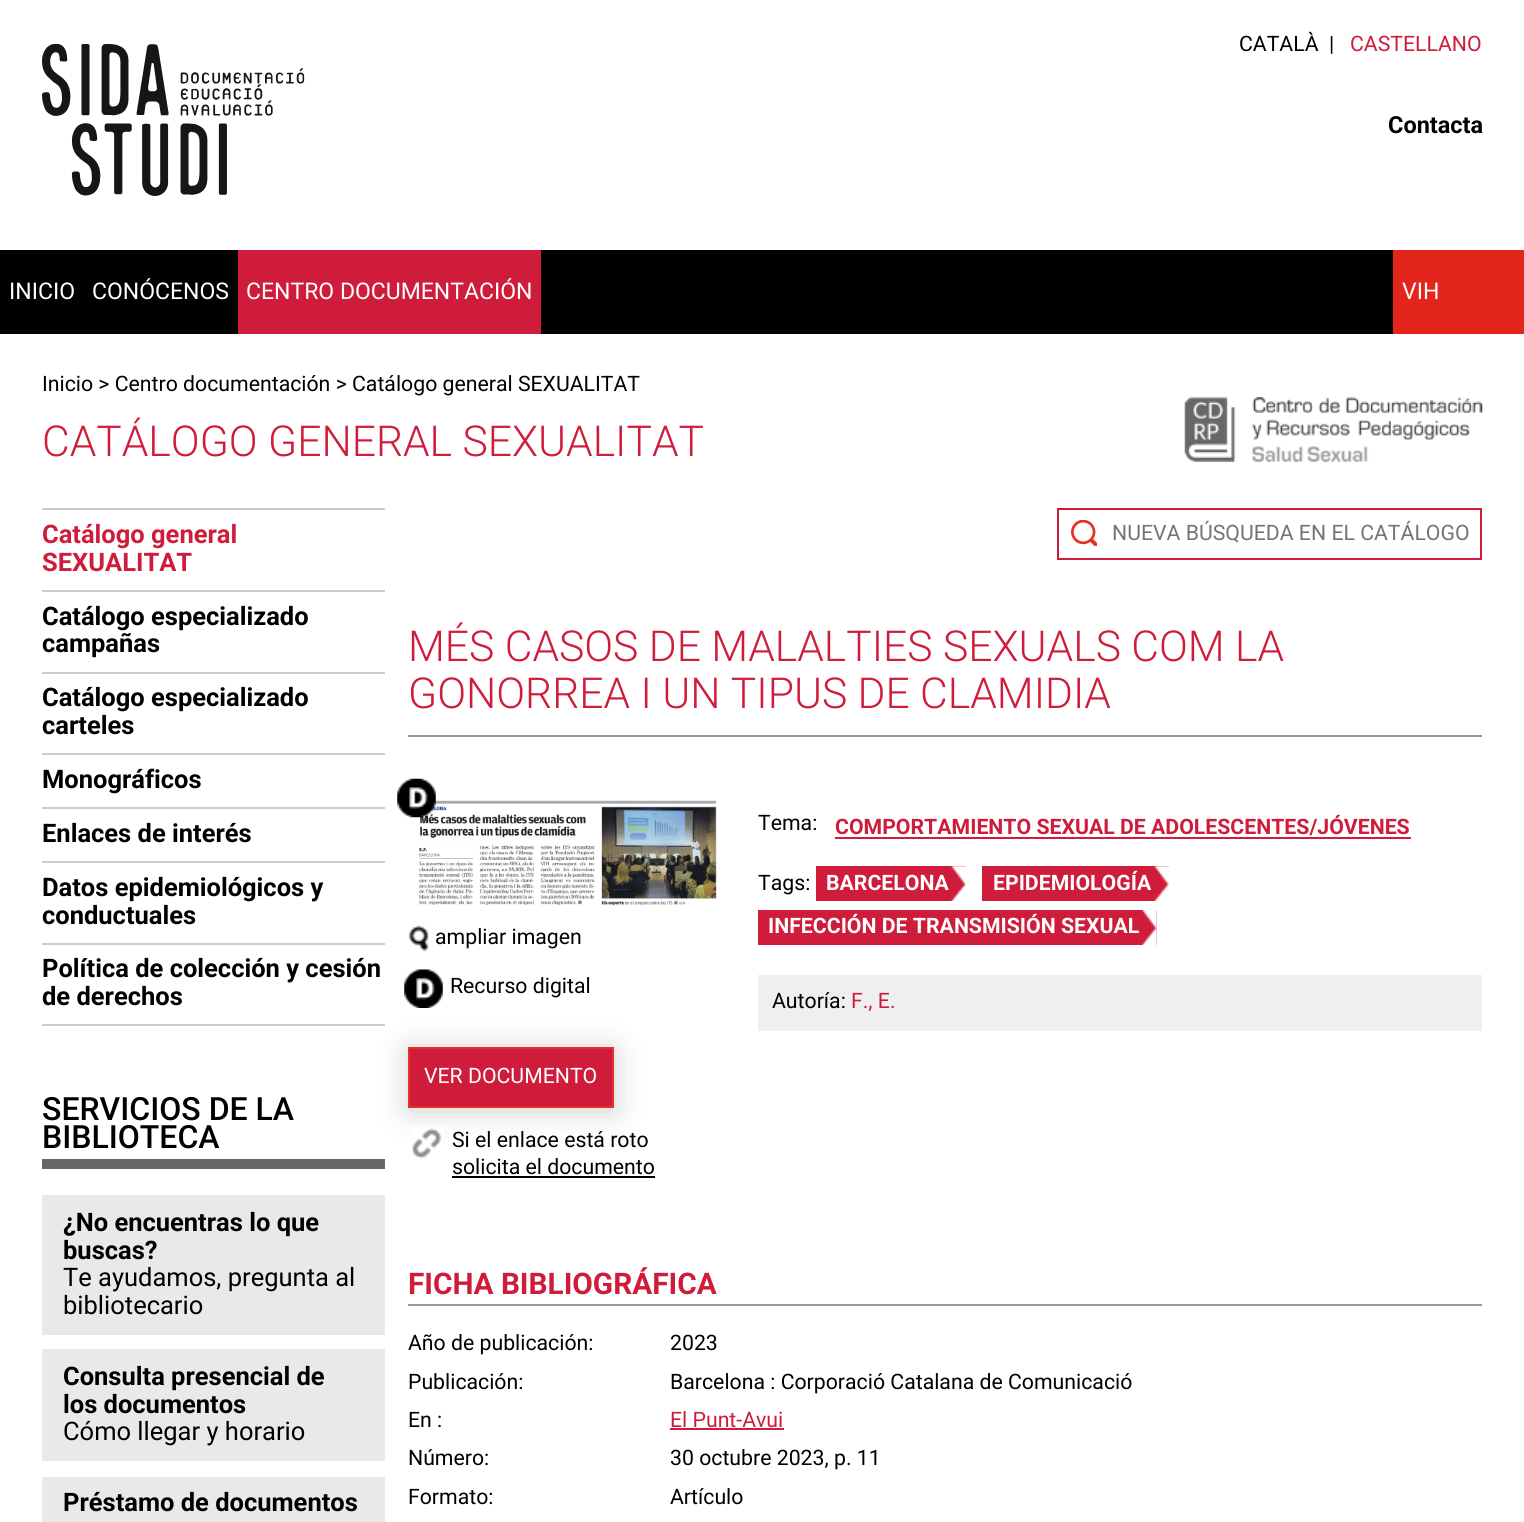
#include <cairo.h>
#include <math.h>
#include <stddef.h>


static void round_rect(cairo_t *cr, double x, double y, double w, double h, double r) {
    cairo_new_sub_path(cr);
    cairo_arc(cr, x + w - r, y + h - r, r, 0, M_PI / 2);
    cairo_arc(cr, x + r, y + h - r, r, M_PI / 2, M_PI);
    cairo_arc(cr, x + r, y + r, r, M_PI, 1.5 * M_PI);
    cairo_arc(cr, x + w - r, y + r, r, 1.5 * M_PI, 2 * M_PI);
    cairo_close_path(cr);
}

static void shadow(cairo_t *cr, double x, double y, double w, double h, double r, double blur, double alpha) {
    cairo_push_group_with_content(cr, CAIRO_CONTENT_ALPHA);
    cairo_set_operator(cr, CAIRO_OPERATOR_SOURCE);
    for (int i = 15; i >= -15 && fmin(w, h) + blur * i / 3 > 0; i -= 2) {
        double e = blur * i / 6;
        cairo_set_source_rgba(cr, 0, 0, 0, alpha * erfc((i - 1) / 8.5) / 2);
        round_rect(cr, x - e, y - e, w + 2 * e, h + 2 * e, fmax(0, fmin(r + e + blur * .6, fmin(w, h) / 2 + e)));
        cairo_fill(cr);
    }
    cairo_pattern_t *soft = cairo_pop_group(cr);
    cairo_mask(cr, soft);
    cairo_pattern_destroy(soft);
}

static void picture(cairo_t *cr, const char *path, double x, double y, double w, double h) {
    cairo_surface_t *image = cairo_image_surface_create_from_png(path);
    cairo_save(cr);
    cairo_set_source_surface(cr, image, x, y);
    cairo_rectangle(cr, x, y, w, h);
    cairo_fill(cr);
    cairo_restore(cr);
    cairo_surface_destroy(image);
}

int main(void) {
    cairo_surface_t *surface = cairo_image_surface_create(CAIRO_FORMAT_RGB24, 1524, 1522);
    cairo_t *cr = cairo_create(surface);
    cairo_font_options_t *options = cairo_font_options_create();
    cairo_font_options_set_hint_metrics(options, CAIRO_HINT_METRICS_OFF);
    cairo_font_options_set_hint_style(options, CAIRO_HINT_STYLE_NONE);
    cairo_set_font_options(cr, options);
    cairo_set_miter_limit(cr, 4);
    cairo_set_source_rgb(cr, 1, 1, 1);
    cairo_paint(cr);
    picture(cr, "img1.png", 42, 44, 263, 152);
    cairo_select_font_face(cr, "Roboto", CAIRO_FONT_SLANT_NORMAL, CAIRO_FONT_WEIGHT_NORMAL);
    cairo_set_font_size(cr, 21.25);
    cairo_set_source_rgb(cr, 0, 0, 0);
    cairo_move_to(cr, 1239, 51);
    cairo_show_text(cr, "CATALÀ");
    cairo_move_to(cr, 1329, 51);
    cairo_show_text(cr, "|");
    cairo_set_source_rgb(cr, 0.808, 0.11, 0.227);
    cairo_move_to(cr, 1350, 51);
    cairo_show_text(cr, "CASTELLANO");
    cairo_select_font_face(cr, "Roboto", CAIRO_FONT_SLANT_NORMAL, CAIRO_FONT_WEIGHT_BOLD);
    cairo_set_font_size(cr, 23.5);
    cairo_set_source_rgb(cr, 0, 0, 0);
    cairo_move_to(cr, 1388, 133);
    cairo_show_text(cr, "Contacta");
    cairo_rectangle(cr, 0, 250, 1393, 84);
    cairo_fill(cr);
    cairo_select_font_face(cr, "Roboto", CAIRO_FONT_SLANT_NORMAL, CAIRO_FONT_WEIGHT_NORMAL);
    cairo_set_font_size(cr, 23);
    cairo_set_source_rgb(cr, 1, 1, 1);
    cairo_move_to(cr, 9, 299);
    cairo_show_text(cr, "INICIO");
    cairo_move_to(cr, 92, 299);
    cairo_show_text(cr, "CONÓCENOS");
    cairo_set_source_rgb(cr, 0.808, 0.11, 0.227);
    cairo_rectangle(cr, 238, 250, 303, 84);
    cairo_fill(cr);
    cairo_set_source_rgb(cr, 1, 1, 1);
    cairo_move_to(cr, 246, 299);
    cairo_show_text(cr, "CENTRO DOCUMENTACIÓN");
    cairo_set_source_rgb(cr, 0.894, 0.145, 0.106);
    cairo_rectangle(cr, 1393, 250, 131, 84);
    cairo_fill(cr);
    cairo_set_source_rgb(cr, 1, 1, 1);
    cairo_move_to(cr, 1402, 299);
    cairo_show_text(cr, "VIH");
    cairo_set_font_size(cr, 21.25);
    cairo_set_source_rgb(cr, 0, 0, 0);
    cairo_move_to(cr, 42, 391);
    cairo_show_text(cr, "Inicio > Centro documentación > Catálogo general SEXUALITAT");
    cairo_select_font_face(cr, "Roboto Light", CAIRO_FONT_SLANT_NORMAL, CAIRO_FONT_WEIGHT_NORMAL);
    cairo_set_font_size(cr, 42.6);
    cairo_set_source_rgb(cr, 0.808, 0.11, 0.227);
    cairo_move_to(cr, 42, 456);
    cairo_show_text(cr, "CATÁLOGO GENERAL SEXUALITAT");
    cairo_set_source_rgb(cr, 0.8, 0.8, 0.8);
    cairo_rectangle(cr, 42, 508, 343, 2);
    cairo_fill(cr);
    cairo_rectangle(cr, 42, 590, 343, 2);
    cairo_fill(cr);
    cairo_select_font_face(cr, "Roboto", CAIRO_FONT_SLANT_NORMAL, CAIRO_FONT_WEIGHT_BOLD);
    cairo_set_font_size(cr, 25.5);
    cairo_set_source_rgb(cr, 0.808, 0.11, 0.227);
    cairo_move_to(cr, 42, 543);
    cairo_show_text(cr, "Catálogo general");
    cairo_move_to(cr, 42, 571);
    cairo_show_text(cr, "SEXUALITAT");
    cairo_set_source_rgb(cr, 0.8, 0.8, 0.8);
    cairo_rectangle(cr, 42, 672, 343, 2);
    cairo_fill(cr);
    cairo_set_source_rgb(cr, 0, 0, 0);
    cairo_move_to(cr, 42, 625);
    cairo_show_text(cr, "Catálogo especializado");
    cairo_move_to(cr, 42, 652);
    cairo_show_text(cr, "campañas");
    cairo_set_source_rgb(cr, 0.8, 0.8, 0.8);
    cairo_rectangle(cr, 42, 753, 343, 2);
    cairo_fill(cr);
    cairo_set_source_rgb(cr, 0, 0, 0);
    cairo_move_to(cr, 42, 706);
    cairo_show_text(cr, "Catálogo especializado");
    cairo_move_to(cr, 42, 734);
    cairo_show_text(cr, "carteles");
    cairo_set_source_rgb(cr, 0.8, 0.8, 0.8);
    cairo_rectangle(cr, 42, 807, 343, 2);
    cairo_fill(cr);
    cairo_set_source_rgb(cr, 0, 0, 0);
    cairo_move_to(cr, 42, 788);
    cairo_show_text(cr, "Monográficos");
    cairo_set_source_rgb(cr, 0.8, 0.8, 0.8);
    cairo_rectangle(cr, 42, 861, 343, 2);
    cairo_fill(cr);
    cairo_set_source_rgb(cr, 0, 0, 0);
    cairo_move_to(cr, 42, 842);
    cairo_show_text(cr, "Enlaces de interés");
    cairo_set_source_rgb(cr, 0.8, 0.8, 0.8);
    cairo_rectangle(cr, 42, 943, 343, 2);
    cairo_fill(cr);
    cairo_set_source_rgb(cr, 0, 0, 0);
    cairo_move_to(cr, 42, 896);
    cairo_show_text(cr, "Datos epidemiológicos y");
    cairo_move_to(cr, 42, 924);
    cairo_show_text(cr, "conductuales");
    cairo_set_source_rgb(cr, 0.8, 0.8, 0.8);
    cairo_rectangle(cr, 42, 1024, 343, 2);
    cairo_fill(cr);
    cairo_set_source_rgb(cr, 0, 0, 0);
    cairo_move_to(cr, 42, 977);
    cairo_show_text(cr, "Política de colección y cesión");
    cairo_move_to(cr, 42, 1005);
    cairo_show_text(cr, "de derechos");
    cairo_set_source_rgb(cr, 0.4, 0.4, 0.4);
    cairo_rectangle(cr, 42, 1159, 343, 10);
    cairo_fill(cr);
    cairo_select_font_face(cr, "Roboto Medium", CAIRO_FONT_SLANT_NORMAL, CAIRO_FONT_WEIGHT_NORMAL);
    cairo_set_font_size(cr, 32);
    cairo_set_source_rgb(cr, 0, 0, 0);
    cairo_move_to(cr, 42, 1120);
    cairo_show_text(cr, "SERVICIOS DE LA");
    cairo_move_to(cr, 42, 1148);
    cairo_show_text(cr, "BIBLIOTECA");
    cairo_set_source_rgb(cr, 0.914, 0.914, 0.914);
    cairo_rectangle(cr, 42, 1195, 343, 140);
    cairo_fill(cr);
    cairo_select_font_face(cr, "Roboto", CAIRO_FONT_SLANT_NORMAL, CAIRO_FONT_WEIGHT_BOLD);
    cairo_set_font_size(cr, 25.5);
    cairo_set_source_rgb(cr, 0, 0, 0);
    cairo_move_to(cr, 63, 1231);
    cairo_show_text(cr, "¿No encuentras lo que");
    cairo_move_to(cr, 63, 1259);
    cairo_show_text(cr, "buscas?");
    cairo_select_font_face(cr, "Roboto", CAIRO_FONT_SLANT_NORMAL, CAIRO_FONT_WEIGHT_NORMAL);
    cairo_move_to(cr, 63, 1286);
    cairo_show_text(cr, "Te ayudamos, pregunta al");
    cairo_move_to(cr, 63, 1314);
    cairo_show_text(cr, "bibliotecario");
    cairo_set_source_rgb(cr, 0.914, 0.914, 0.914);
    cairo_rectangle(cr, 42, 1349, 343, 112);
    cairo_fill(cr);
    cairo_select_font_face(cr, "Roboto", CAIRO_FONT_SLANT_NORMAL, CAIRO_FONT_WEIGHT_BOLD);
    cairo_set_source_rgb(cr, 0, 0, 0);
    cairo_move_to(cr, 63, 1385);
    cairo_show_text(cr, "Consulta presencial de");
    cairo_move_to(cr, 63, 1413);
    cairo_show_text(cr, "los documentos");
    cairo_select_font_face(cr, "Roboto", CAIRO_FONT_SLANT_NORMAL, CAIRO_FONT_WEIGHT_NORMAL);
    cairo_move_to(cr, 63, 1440);
    cairo_show_text(cr, "Cómo llegar y horario");
    cairo_set_source_rgb(cr, 0.914, 0.914, 0.914);
    cairo_rectangle(cr, 42, 1477, 343, 45);
    cairo_fill(cr);
    cairo_select_font_face(cr, "Roboto", CAIRO_FONT_SLANT_NORMAL, CAIRO_FONT_WEIGHT_BOLD);
    cairo_set_source_rgb(cr, 0, 0, 0);
    cairo_move_to(cr, 63, 1511);
    cairo_show_text(cr, "Préstamo de documentos");
    picture(cr, "img2.png", 1184, 397, 299, 65);
    cairo_rectangle(cr, 1058, 509, 423, 50);
    cairo_set_source_rgb(cr, 0.808, 0.11, 0.227);
    cairo_stroke(cr);
    picture(cr, "img3.png", 1071, 520, 26, 26);
    cairo_select_font_face(cr, "Roboto", CAIRO_FONT_SLANT_NORMAL, CAIRO_FONT_WEIGHT_NORMAL);
    cairo_set_font_size(cr, 21.25);
    cairo_set_source_rgb(cr, 0.455, 0.455, 0.455);
    cairo_move_to(cr, 1112, 540);
    cairo_show_text(cr, "NUEVA BÚSQUEDA EN EL CATÁLOGO");
    cairo_set_source_rgb(cr, 0.6, 0.6, 0.6);
    cairo_rectangle(cr, 408, 735, 1074, 2);
    cairo_fill(cr);
    cairo_select_font_face(cr, "Roboto Light", CAIRO_FONT_SLANT_NORMAL, CAIRO_FONT_WEIGHT_NORMAL);
    cairo_set_font_size(cr, 42.6);
    cairo_set_source_rgb(cr, 0.808, 0.11, 0.227);
    cairo_move_to(cr, 408, 661);
    cairo_show_text(cr, "MÉS CASOS DE MALALTIES SEXUALS COM LA");
    cairo_move_to(cr, 408, 708);
    cairo_show_text(cr, "GONORREA I UN TIPUS DE CLAMIDIA");
    picture(cr, "img5.png", 419, 800, 298, 106);
    picture(cr, "img4.png", 397, 778, 39, 40);
    picture(cr, "img6.png", 408, 925, 21, 27);
    cairo_select_font_face(cr, "Roboto", CAIRO_FONT_SLANT_NORMAL, CAIRO_FONT_WEIGHT_NORMAL);
    cairo_set_font_size(cr, 21.25);
    cairo_set_source_rgb(cr, 0, 0, 0);
    cairo_move_to(cr, 435, 944);
    cairo_show_text(cr, "ampliar imagen");
    cairo_set_source_rgb(cr, 0, 0, 0);
    shadow(cr, 408, 1050, 206, 61, 0, 15, 0.19);
    picture(cr, "img7.png", 404, 969, 39, 39);
    cairo_set_source_rgb(cr, 0, 0, 0);
    cairo_move_to(cr, 450, 993);
    cairo_show_text(cr, "Recurso digital");
    cairo_set_source_rgb(cr, 0.808, 0.11, 0.227);
    cairo_rectangle(cr, 409, 1048, 204, 59);
    cairo_fill_preserve(cr);
    cairo_set_source_rgb(cr, 0.898, 0.192, 0.149);
    cairo_stroke(cr);
    cairo_set_source_rgb(cr, 1, 1, 1);
    cairo_move_to(cr, 424, 1083);
    cairo_show_text(cr, "VER DOCUMENTO");
    picture(cr, "img8.png", 412, 1127, 32, 32);
    cairo_set_source_rgb(cr, 0, 0, 0);
    cairo_move_to(cr, 452, 1147);
    cairo_show_text(cr, "Si el enlace está roto");
    cairo_move_to(cr, 452, 1174);
    cairo_show_text(cr, "solicita el documento");
    cairo_rectangle(cr, 452, 1176, 203, 2);
    cairo_fill(cr);
    cairo_move_to(cr, 758, 830);
    cairo_show_text(cr, "Tema:");
    cairo_select_font_face(cr, "Roboto", CAIRO_FONT_SLANT_NORMAL, CAIRO_FONT_WEIGHT_BOLD);
    cairo_set_source_rgb(cr, 0.808, 0.11, 0.227);
    cairo_move_to(cr, 835, 834);
    cairo_show_text(cr, "COMPORTAMIENTO SEXUAL DE ADOLESCENTES/JÓVENES");
    cairo_rectangle(cr, 835, 837, 576, 2);
    cairo_fill(cr);
    cairo_select_font_face(cr, "Roboto", CAIRO_FONT_SLANT_NORMAL, CAIRO_FONT_WEIGHT_NORMAL);
    cairo_set_source_rgb(cr, 0, 0, 0);
    cairo_move_to(cr, 758, 890);
    cairo_show_text(cr, "Tags:");
    cairo_set_source_rgb(cr, 0.808, 0.11, 0.227);
    cairo_rectangle(cr, 816, 866, 150, 35);
    cairo_fill(cr);
    picture(cr, "img9.png", 951, 866, 15, 35);
    cairo_select_font_face(cr, "Roboto", CAIRO_FONT_SLANT_NORMAL, CAIRO_FONT_WEIGHT_BOLD);
    cairo_set_source_rgb(cr, 1, 1, 1);
    cairo_move_to(cr, 826, 890);
    cairo_show_text(cr, "BARCELONA");
    cairo_set_source_rgb(cr, 0.808, 0.11, 0.227);
    cairo_rectangle(cr, 982, 866, 187, 35);
    cairo_fill(cr);
    picture(cr, "img9.png", 1154, 866, 15, 35);
    cairo_set_source_rgb(cr, 1, 1, 1);
    cairo_move_to(cr, 993, 890);
    cairo_show_text(cr, "EPIDEMIOLOGÍA");
    cairo_set_source_rgb(cr, 0.808, 0.11, 0.227);
    cairo_rectangle(cr, 758, 910, 399, 35);
    cairo_fill(cr);
    picture(cr, "img10.png", 1142, 910, 15, 35);
    cairo_set_source_rgb(cr, 1, 1, 1);
    cairo_move_to(cr, 768, 933);
    cairo_show_text(cr, "INFECCIÓN DE TRANSMISIÓN SEXUAL");
    cairo_set_source_rgb(cr, 0.937, 0.937, 0.937);
    cairo_rectangle(cr, 758, 975, 724, 56);
    cairo_fill(cr);
    cairo_select_font_face(cr, "Roboto", CAIRO_FONT_SLANT_NORMAL, CAIRO_FONT_WEIGHT_NORMAL);
    cairo_set_source_rgb(cr, 0, 0, 0);
    cairo_move_to(cr, 772, 1008);
    cairo_show_text(cr, "Autoría:");
    cairo_set_source_rgb(cr, 0.808, 0.11, 0.227);
    cairo_move_to(cr, 851, 1008);
    cairo_show_text(cr, "F., E.");
    cairo_set_source_rgb(cr, 0.6, 0.6, 0.6);
    cairo_rectangle(cr, 408, 1304, 1074, 2);
    cairo_fill(cr);
    cairo_select_font_face(cr, "Roboto", CAIRO_FONT_SLANT_NORMAL, CAIRO_FONT_WEIGHT_BOLD);
    cairo_set_font_size(cr, 29.75);
    cairo_set_source_rgb(cr, 0.808, 0.11, 0.227);
    cairo_move_to(cr, 408, 1294);
    cairo_show_text(cr, "FICHA BIBLIOGRÁFICA");
    cairo_select_font_face(cr, "Roboto", CAIRO_FONT_SLANT_NORMAL, CAIRO_FONT_WEIGHT_NORMAL);
    cairo_set_font_size(cr, 21.25);
    cairo_set_source_rgb(cr, 0, 0, 0);
    cairo_move_to(cr, 408, 1350);
    cairo_show_text(cr, "Año de publicación:");
    cairo_move_to(cr, 670, 1350);
    cairo_show_text(cr, "2023");
    cairo_move_to(cr, 408, 1389);
    cairo_show_text(cr, "Publicación:");
    cairo_move_to(cr, 670, 1389);
    cairo_show_text(cr, "Barcelona : Corporació Catalana de Comunicació");
    cairo_move_to(cr, 408, 1427);
    cairo_show_text(cr, "En :");
    cairo_set_source_rgb(cr, 0.808, 0.11, 0.227);
    cairo_move_to(cr, 670, 1427);
    cairo_show_text(cr, "El Punt-Avui");
    cairo_rectangle(cr, 670, 1428, 114, 2);
    cairo_fill(cr);
    cairo_set_source_rgb(cr, 0, 0, 0);
    cairo_move_to(cr, 408, 1465);
    cairo_show_text(cr, "Número:");
    cairo_move_to(cr, 670, 1465);
    cairo_show_text(cr, "30 octubre 2023, p. 11");
    cairo_move_to(cr, 408, 1504);
    cairo_show_text(cr, "Formato:");
    cairo_move_to(cr, 670, 1504);
    cairo_show_text(cr, "Artículo");
    cairo_surface_write_to_png(surface, "page.png");
    cairo_font_options_destroy(options);
    cairo_destroy(cr);
    cairo_surface_destroy(surface);
    return 0;
}
